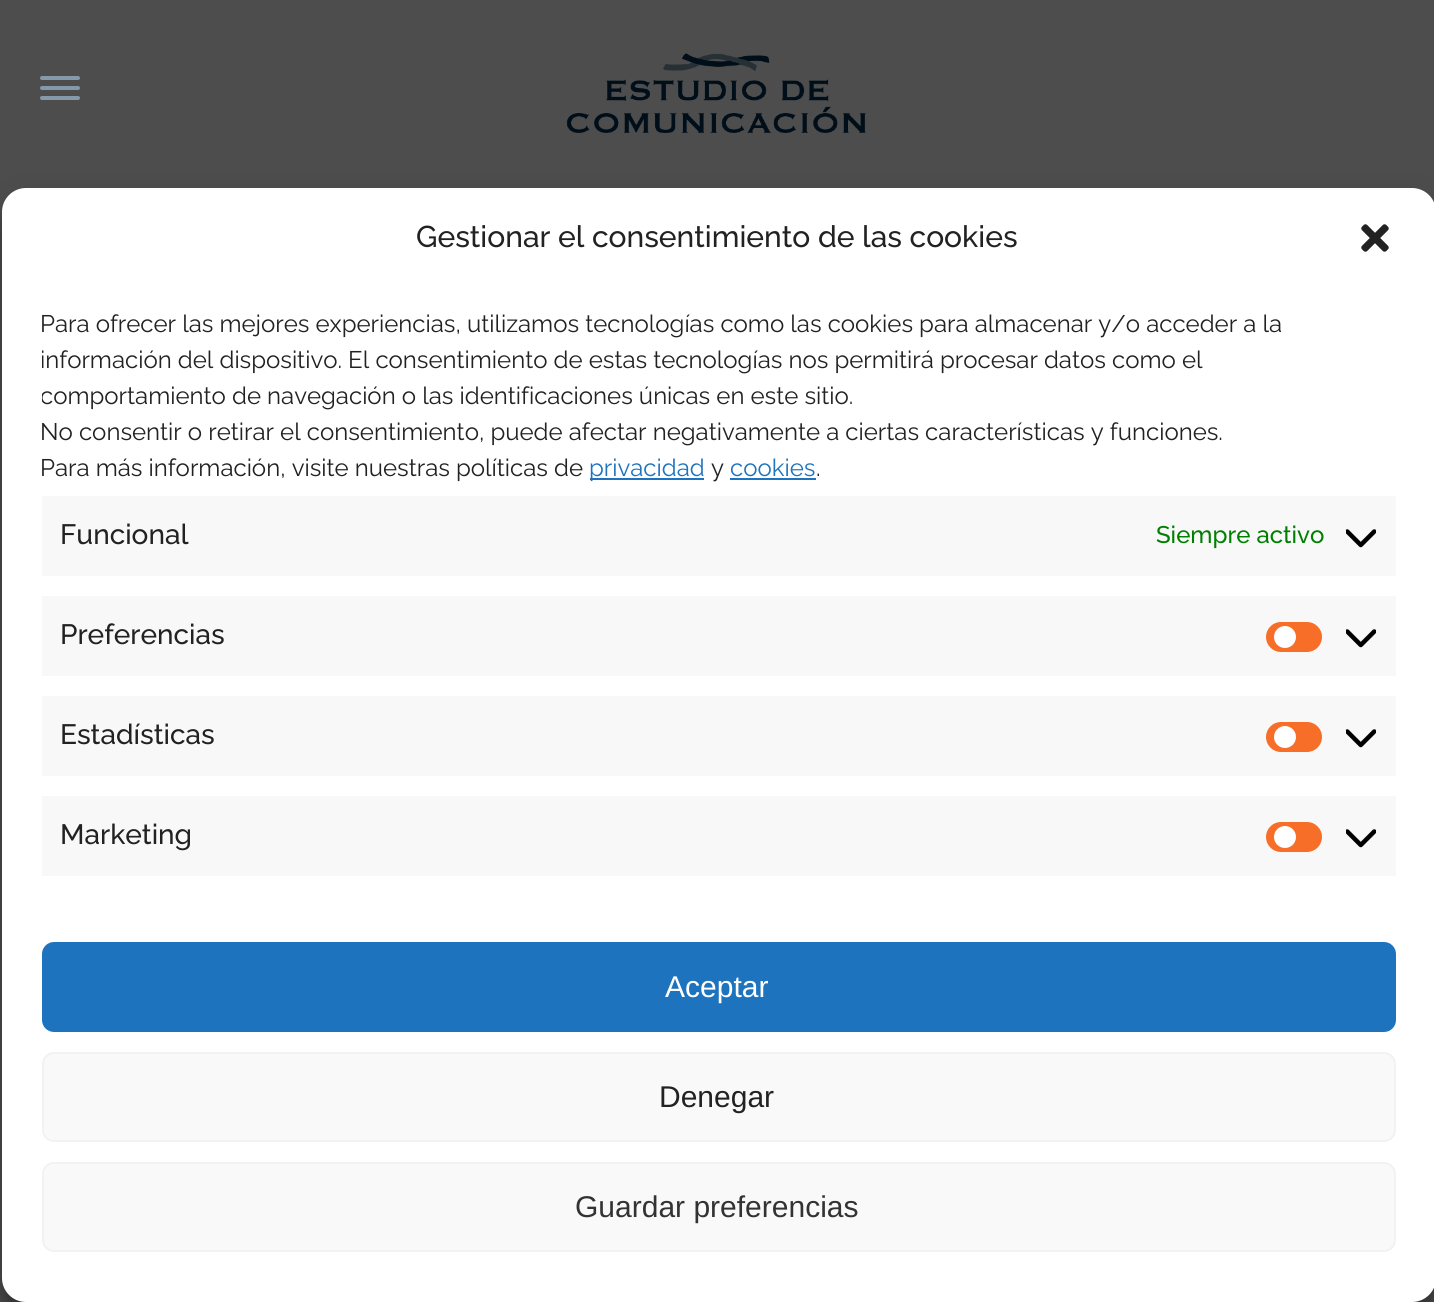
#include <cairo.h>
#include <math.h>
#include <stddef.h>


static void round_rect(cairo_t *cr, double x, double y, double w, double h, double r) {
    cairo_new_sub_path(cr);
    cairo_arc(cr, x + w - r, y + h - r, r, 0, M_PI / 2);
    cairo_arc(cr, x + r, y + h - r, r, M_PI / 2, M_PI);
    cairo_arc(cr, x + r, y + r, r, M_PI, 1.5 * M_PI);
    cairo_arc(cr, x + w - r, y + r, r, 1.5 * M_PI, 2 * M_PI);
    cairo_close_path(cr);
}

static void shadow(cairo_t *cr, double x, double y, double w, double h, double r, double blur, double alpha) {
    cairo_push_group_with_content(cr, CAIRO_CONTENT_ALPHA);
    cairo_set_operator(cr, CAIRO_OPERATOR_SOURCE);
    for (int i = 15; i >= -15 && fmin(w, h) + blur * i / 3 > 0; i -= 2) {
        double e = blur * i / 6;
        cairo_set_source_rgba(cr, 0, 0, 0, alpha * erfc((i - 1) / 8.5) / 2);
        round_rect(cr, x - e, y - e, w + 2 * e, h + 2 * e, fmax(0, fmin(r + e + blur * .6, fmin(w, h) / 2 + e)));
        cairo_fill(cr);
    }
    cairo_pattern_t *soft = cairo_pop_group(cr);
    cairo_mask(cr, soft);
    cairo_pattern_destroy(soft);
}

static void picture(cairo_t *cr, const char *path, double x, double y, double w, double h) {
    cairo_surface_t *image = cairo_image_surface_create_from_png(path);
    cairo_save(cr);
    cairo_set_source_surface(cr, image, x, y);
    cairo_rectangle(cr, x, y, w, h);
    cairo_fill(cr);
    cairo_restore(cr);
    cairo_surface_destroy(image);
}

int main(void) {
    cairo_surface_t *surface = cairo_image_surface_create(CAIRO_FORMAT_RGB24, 1434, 1302);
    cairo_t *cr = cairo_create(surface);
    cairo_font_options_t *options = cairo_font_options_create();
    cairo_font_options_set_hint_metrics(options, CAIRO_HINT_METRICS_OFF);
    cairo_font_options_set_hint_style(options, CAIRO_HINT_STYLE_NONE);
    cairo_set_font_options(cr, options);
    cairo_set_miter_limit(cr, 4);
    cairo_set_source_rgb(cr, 0.302, 0.302, 0.302);
    cairo_paint(cr);
    cairo_set_source_rgb(cr, 0.522, 0.6, 0.659);
    round_rect(cr, 40, 76, 40, 4, 2);
    cairo_fill(cr);
    round_rect(cr, 40, 86, 40, 4, 2);
    cairo_fill(cr);
    round_rect(cr, 40, 96, 40, 4, 2);
    cairo_fill(cr);
    picture(cr, "img1.png", 566, 53, 300, 80);
    cairo_set_source_rgb(cr, 0, 0, 0);
    shadow(cr, 2, 200, 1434, 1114, 24, 6, 0.23);
    shadow(cr, 2, 208, 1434, 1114, 24, 20, 0.19);
    cairo_set_source_rgb(cr, 1, 1, 1);
    round_rect(cr, 2, 188, 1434, 1114, 24);
    cairo_fill(cr);
    cairo_select_font_face(cr, "Raleway Medium", CAIRO_FONT_SLANT_NORMAL, CAIRO_FONT_WEIGHT_NORMAL);
    cairo_set_font_size(cr, 30);
    cairo_set_source_rgb(cr, 0.133, 0.133, 0.133);
    cairo_move_to(cr, 416, 247);
    cairo_show_text(cr, "Gestionar el consentimiento de las cookies");
    picture(cr, "img2.png", 1361, 224, 28, 28);
    cairo_select_font_face(cr, "Raleway", CAIRO_FONT_SLANT_NORMAL, CAIRO_FONT_WEIGHT_NORMAL);
    cairo_set_font_size(cr, 24);
    cairo_move_to(cr, 40, 332);
    cairo_show_text(cr, "Para ofrecer las mejores experiencias, utilizamos tecnologías como las cookies para almacenar y/o acceder a la");
    cairo_save(cr);
    cairo_rectangle(cr, 42, 306, 1354, 570);
    cairo_clip(cr);
    cairo_move_to(cr, 40, 368);
    cairo_show_text(cr, "información del dispositivo. El consentimiento de estas tecnologías nos permitirá procesar datos como el");
    cairo_move_to(cr, 40, 404);
    cairo_show_text(cr, "comportamiento de navegación o las identificaciones únicas en este sitio.");
    cairo_restore(cr);
    cairo_move_to(cr, 40, 440);
    cairo_show_text(cr, "No consentir o retirar el consentimiento, puede afectar negativamente a ciertas características y funciones.");
    cairo_move_to(cr, 40, 476);
    cairo_show_text(cr, "Para más información, visite nuestras políticas de");
    cairo_set_source_rgb(cr, 0.118, 0.451, 0.745);
    cairo_rectangle(cr, 590, 478, 114, 2);
    cairo_fill(cr);
    cairo_move_to(cr, 589, 476);
    cairo_show_text(cr, "privacidad");
    cairo_set_source_rgb(cr, 0.133, 0.133, 0.133);
    cairo_move_to(cr, 711, 476);
    cairo_show_text(cr, "y");
    cairo_set_source_rgb(cr, 0.118, 0.451, 0.745);
    cairo_move_to(cr, 730, 476);
    cairo_show_text(cr, "cookies");
    cairo_rectangle(cr, 730, 478, 86, 2);
    cairo_fill(cr);
    cairo_set_source_rgb(cr, 0.133, 0.133, 0.133);
    cairo_move_to(cr, 816, 476);
    cairo_show_text(cr, ".");
    cairo_set_source_rgb(cr, 0.969, 0.969, 0.969);
    cairo_rectangle(cr, 42, 496, 1354, 80);
    cairo_fill(cr);
    cairo_select_font_face(cr, "Raleway Medium", CAIRO_FONT_SLANT_NORMAL, CAIRO_FONT_WEIGHT_NORMAL);
    cairo_set_font_size(cr, 28);
    cairo_set_source_rgb(cr, 0.133, 0.133, 0.133);
    cairo_move_to(cr, 60, 544);
    cairo_show_text(cr, "Funcional");
    cairo_set_font_size(cr, 24);
    cairo_set_source_rgb(cr, 0, 0.502, 0);
    cairo_move_to(cr, 1156, 543);
    cairo_show_text(cr, "Siempre activo");
    picture(cr, "img3.png", 1346, 529, 30, 19);
    cairo_set_source_rgb(cr, 0.969, 0.969, 0.969);
    cairo_rectangle(cr, 42, 596, 1354, 80);
    cairo_fill(cr);
    cairo_set_font_size(cr, 28);
    cairo_set_source_rgb(cr, 0.133, 0.133, 0.133);
    cairo_move_to(cr, 60, 644);
    cairo_show_text(cr, "Preferencias");
    cairo_set_source_rgb(cr, 0.961, 0.431, 0.157);
    round_rect(cr, 1266, 622, 56, 30, 15);
    cairo_fill(cr);
    cairo_set_source_rgb(cr, 1, 1, 1);
    cairo_arc(cr, 1285, 637, 11, 0, 2 * M_PI);
    cairo_fill(cr);
    picture(cr, "img3.png", 1346, 629, 30, 19);
    cairo_set_source_rgb(cr, 0.969, 0.969, 0.969);
    cairo_rectangle(cr, 42, 696, 1354, 80);
    cairo_fill(cr);
    cairo_set_source_rgb(cr, 0.133, 0.133, 0.133);
    cairo_move_to(cr, 60, 744);
    cairo_show_text(cr, "Estadísticas");
    cairo_set_source_rgb(cr, 0.961, 0.431, 0.157);
    round_rect(cr, 1266, 722, 56, 30, 15);
    cairo_fill(cr);
    cairo_set_source_rgb(cr, 1, 1, 1);
    cairo_arc(cr, 1285, 737, 11, 0, 2 * M_PI);
    cairo_fill(cr);
    picture(cr, "img3.png", 1346, 729, 30, 19);
    cairo_set_source_rgb(cr, 0.969, 0.969, 0.969);
    cairo_rectangle(cr, 42, 796, 1354, 80);
    cairo_fill(cr);
    cairo_set_source_rgb(cr, 0.133, 0.133, 0.133);
    cairo_move_to(cr, 60, 844);
    cairo_show_text(cr, "Marketing");
    cairo_set_source_rgb(cr, 0.961, 0.431, 0.157);
    round_rect(cr, 1266, 822, 56, 30, 15);
    cairo_fill(cr);
    cairo_set_source_rgb(cr, 1, 1, 1);
    cairo_arc(cr, 1285, 837, 11, 0, 2 * M_PI);
    cairo_fill(cr);
    picture(cr, "img3.png", 1346, 829, 30, 19);
    cairo_set_source_rgb(cr, 0.118, 0.451, 0.745);
    round_rect(cr, 43, 943, 1352, 88, 11);
    cairo_fill_preserve(cr);
    cairo_stroke(cr);
    cairo_select_font_face(cr, "Liberation Sans", CAIRO_FONT_SLANT_NORMAL, CAIRO_FONT_WEIGHT_NORMAL);
    cairo_set_font_size(cr, 30);
    cairo_set_source_rgb(cr, 1, 1, 1);
    cairo_move_to(cr, 665, 997);
    cairo_show_text(cr, "Aceptar");
    cairo_set_source_rgb(cr, 0.976, 0.976, 0.976);
    round_rect(cr, 43, 1053, 1352, 88, 11);
    cairo_fill_preserve(cr);
    cairo_set_source_rgb(cr, 0.949, 0.949, 0.949);
    cairo_stroke(cr);
    cairo_set_source_rgb(cr, 0.133, 0.133, 0.133);
    cairo_move_to(cr, 659, 1107);
    cairo_show_text(cr, "Denegar");
    cairo_set_source_rgb(cr, 0.976, 0.976, 0.976);
    round_rect(cr, 43, 1163, 1352, 88, 11);
    cairo_fill_preserve(cr);
    cairo_set_source_rgb(cr, 0.949, 0.949, 0.949);
    cairo_stroke(cr);
    cairo_set_source_rgb(cr, 0.2, 0.2, 0.2);
    cairo_move_to(cr, 575, 1217);
    cairo_show_text(cr, "Guardar preferencias");
    cairo_surface_write_to_png(surface, "page.png");
    cairo_font_options_destroy(options);
    cairo_destroy(cr);
    cairo_surface_destroy(surface);
    return 0;
}
